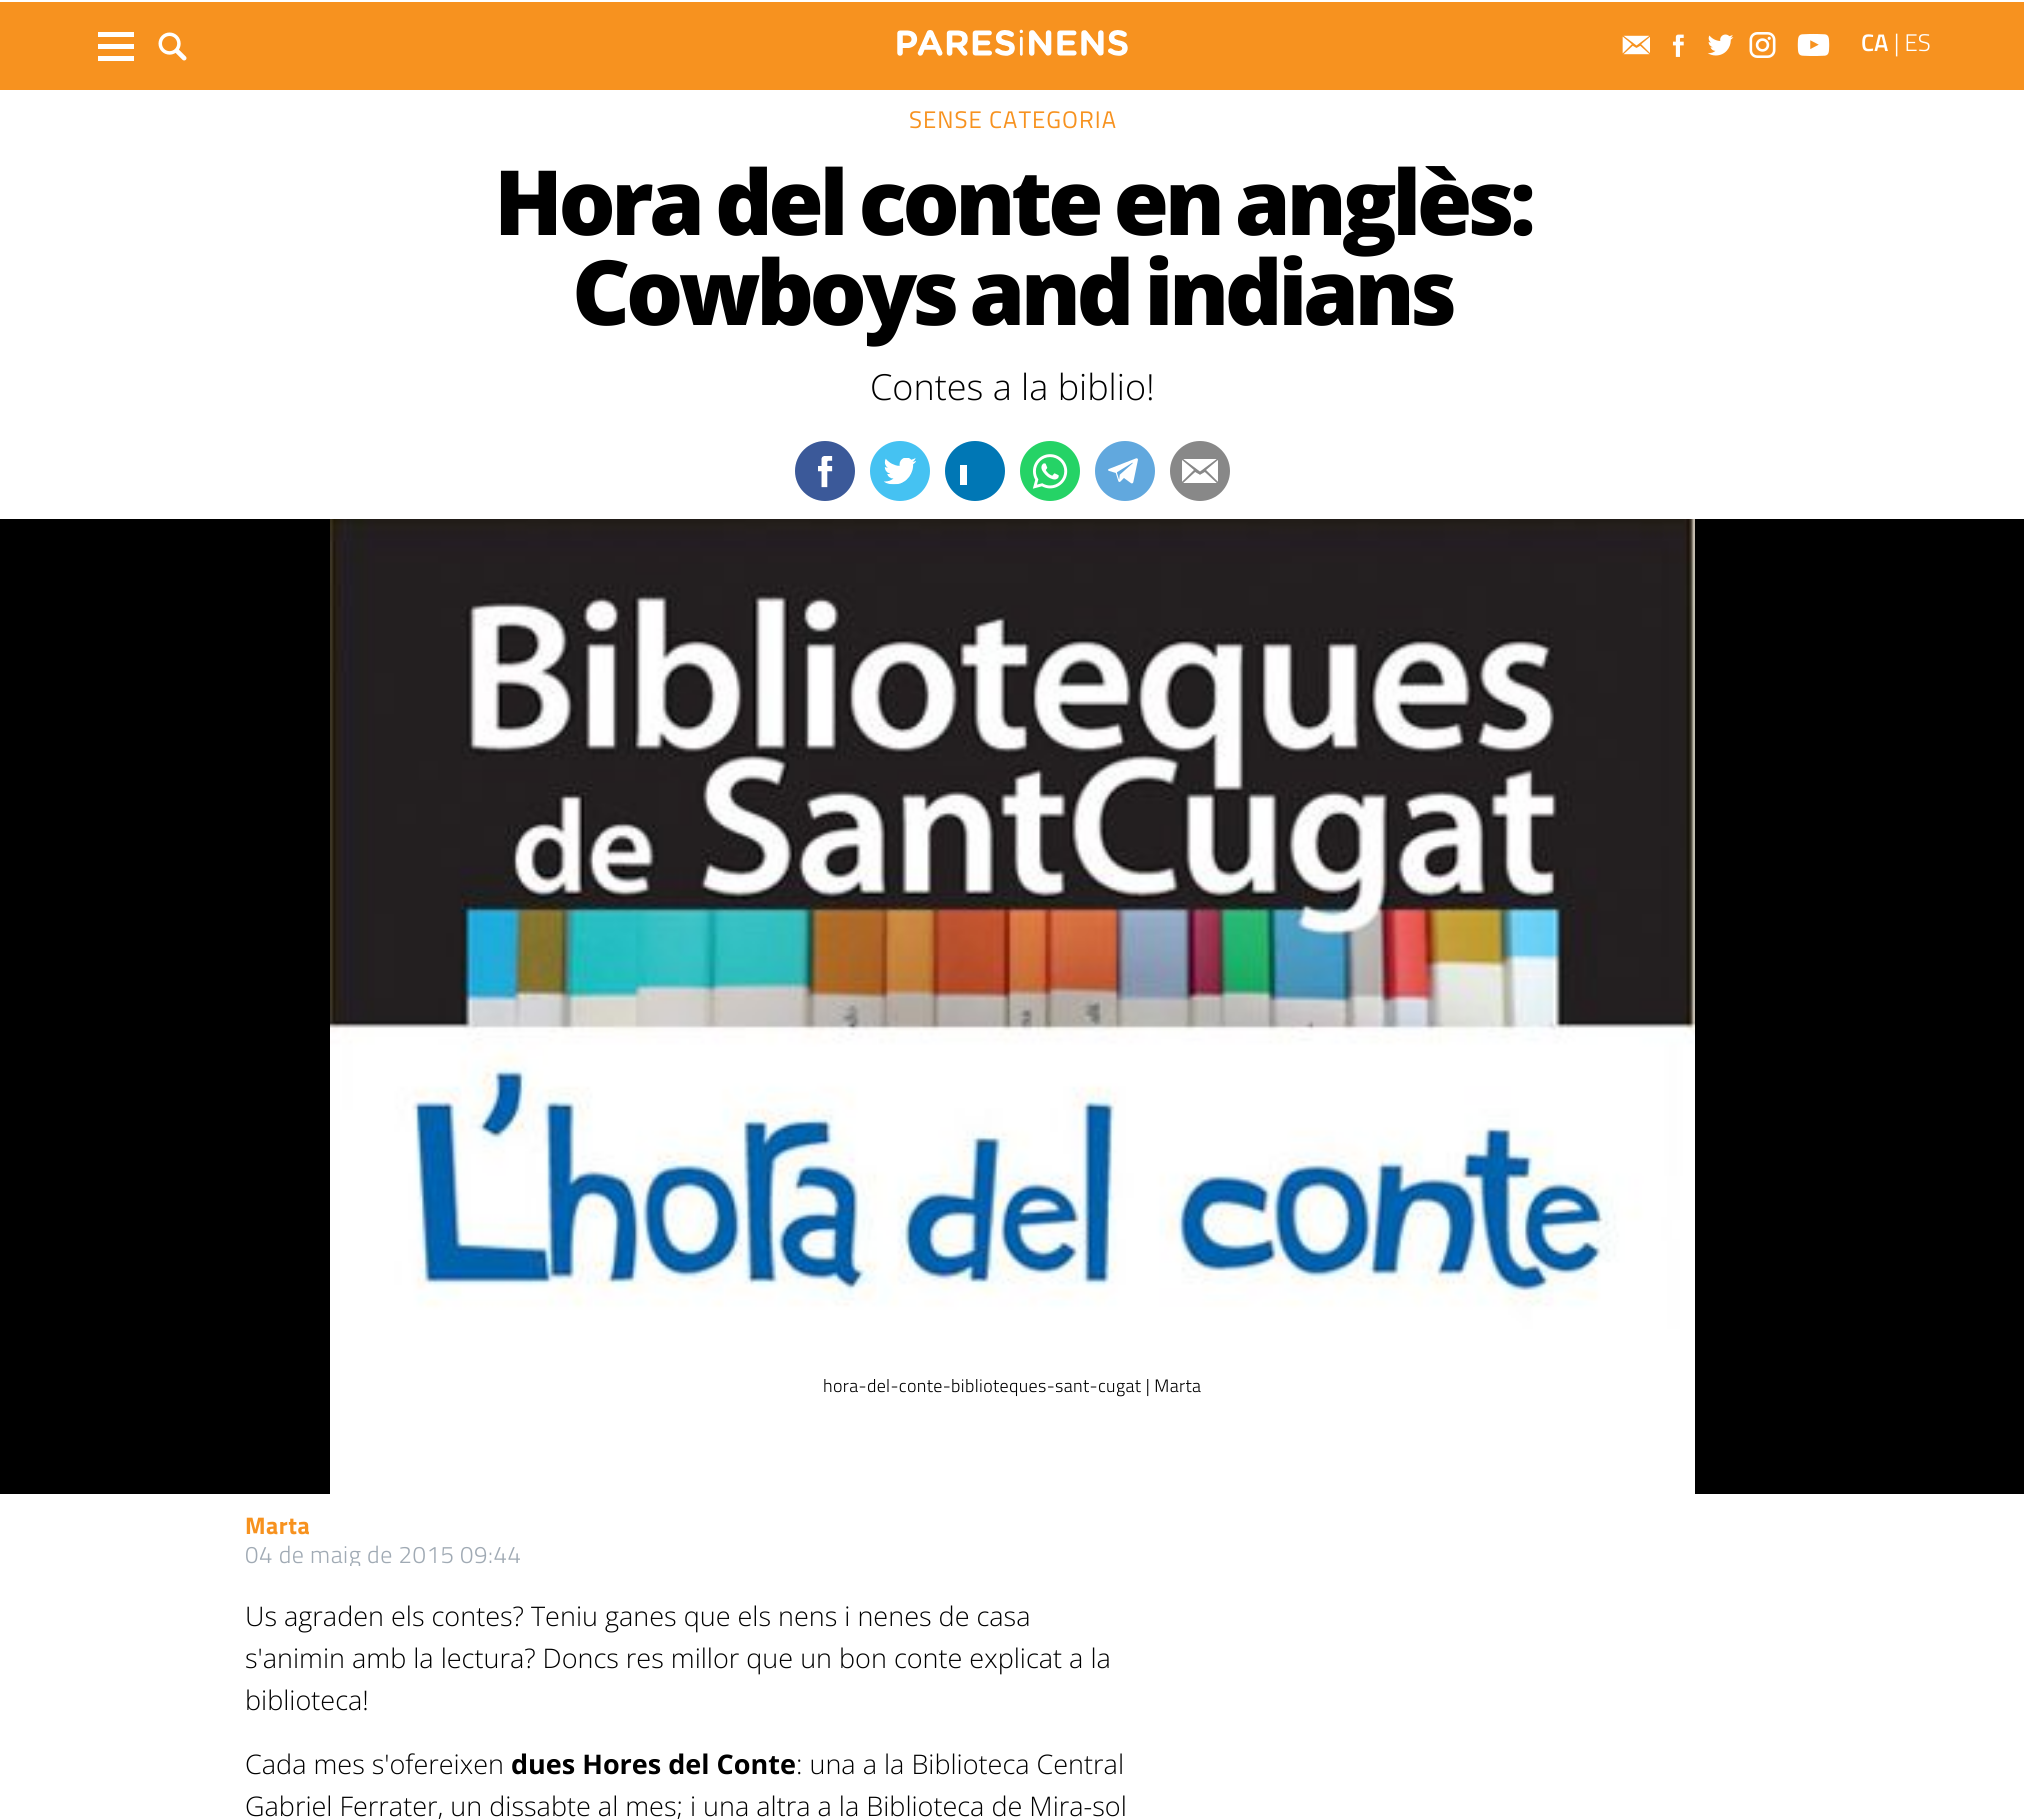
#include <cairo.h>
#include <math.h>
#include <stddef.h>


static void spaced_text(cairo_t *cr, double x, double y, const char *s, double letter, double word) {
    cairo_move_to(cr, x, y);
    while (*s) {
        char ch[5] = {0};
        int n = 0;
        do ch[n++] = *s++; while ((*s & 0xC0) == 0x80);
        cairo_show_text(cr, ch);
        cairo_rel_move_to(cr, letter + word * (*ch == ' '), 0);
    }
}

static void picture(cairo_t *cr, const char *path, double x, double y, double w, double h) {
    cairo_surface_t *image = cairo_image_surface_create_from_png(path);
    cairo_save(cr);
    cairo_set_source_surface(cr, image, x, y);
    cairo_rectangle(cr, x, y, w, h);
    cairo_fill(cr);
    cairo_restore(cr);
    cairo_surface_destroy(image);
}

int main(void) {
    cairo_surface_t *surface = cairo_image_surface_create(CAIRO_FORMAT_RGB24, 2024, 1819);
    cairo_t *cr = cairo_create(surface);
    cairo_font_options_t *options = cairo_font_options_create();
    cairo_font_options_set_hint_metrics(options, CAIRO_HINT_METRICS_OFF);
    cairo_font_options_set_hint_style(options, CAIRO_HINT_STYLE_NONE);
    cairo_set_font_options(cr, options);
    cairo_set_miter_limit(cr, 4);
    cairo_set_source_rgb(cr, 1, 1, 1);
    cairo_paint(cr);
    cairo_set_source_rgb(cr, 0.965, 0.573, 0.122);
    cairo_rectangle(cr, 0, 2, 2024, 88);
    cairo_fill(cr);
    picture(cr, "img1.png", 897, 29, 231, 27);
    cairo_set_source_rgb(cr, 1, 1, 1);
    cairo_rectangle(cr, 98, 32, 36, 5);
    cairo_fill(cr);
    cairo_rectangle(cr, 98, 44, 36, 5);
    cairo_fill(cr);
    cairo_rectangle(cr, 98, 56, 36, 5);
    cairo_fill(cr);
    picture(cr, "img2.png", 158, 32, 29, 29);
    picture(cr, "img3.png", 1622, 35, 28, 20);
    picture(cr, "img4.png", 1672, 34, 12, 23);
    picture(cr, "img5.png", 1707, 34, 27, 22);
    picture(cr, "img6.png", 1749, 32, 27, 26);
    picture(cr, "img7.png", 1797, 33, 33, 23);
    cairo_select_font_face(cr, "Titillium Web SemiBold", CAIRO_FONT_SLANT_NORMAL, CAIRO_FONT_WEIGHT_NORMAL);
    cairo_set_font_size(cr, 24);
    cairo_move_to(cr, 1861, 51);
    cairo_show_text(cr, "CA");
    cairo_select_font_face(cr, "Titillium Web Light", CAIRO_FONT_SLANT_NORMAL, CAIRO_FONT_WEIGHT_NORMAL);
    cairo_move_to(cr, 1894, 51);
    cairo_show_text(cr, "| ES");
    cairo_select_font_face(cr, "Titillium Web", CAIRO_FONT_SLANT_NORMAL, CAIRO_FONT_WEIGHT_NORMAL);
    cairo_set_source_rgb(cr, 0.965, 0.573, 0.122);
    spaced_text(cr, 909, 128, "SENSE CATEGORIA", 1, 0);
    cairo_select_font_face(cr, "Open Sans ExtraBold", CAIRO_FONT_SLANT_NORMAL, CAIRO_FONT_WEIGHT_NORMAL);
    cairo_set_font_size(cr, 90);
    cairo_set_source_rgb(cr, 0, 0, 0);
    spaced_text(cr, 494, 235, "Hora del conte en anglès:", -4.5, -4.5);
    spaced_text(cr, 572, 325, "Cowboys and indians", -4.5, -4.5);
    cairo_select_font_face(cr, "Open Sans Light", CAIRO_FONT_SLANT_NORMAL, CAIRO_FONT_WEIGHT_NORMAL);
    cairo_set_font_size(cr, 36);
    cairo_move_to(cr, 870, 400);
    cairo_show_text(cr, "Contes a la biblio!");
    cairo_set_source_rgb(cr, 0.231, 0.349, 0.6);
    cairo_new_path(cr);
    cairo_arc(cr, 825, 471, 30, 0, 2 * M_PI);
    cairo_fill(cr);
    picture(cr, "img8.png", 818, 456, 15, 32);
    cairo_set_source_rgb(cr, 0.271, 0.761, 0.949);
    cairo_arc(cr, 900, 471, 30, 0, 2 * M_PI);
    cairo_fill(cr);
    picture(cr, "img9.png", 884, 458, 32, 27);
    cairo_set_source_rgb(cr, 0, 0.467, 0.71);
    cairo_arc(cr, 975, 471, 30, 0, 2 * M_PI);
    cairo_fill(cr);
    cairo_set_source_rgb(cr, 1, 1, 1);
    cairo_rectangle(cr, 960, 465, 7, 20);
    cairo_fill(cr);
    picture(cr, "img10.png", 1020, 441, 60, 60);
    cairo_set_source_rgb(cr, 0.38, 0.659, 0.871);
    cairo_arc(cr, 1125, 471, 30, 0, 2 * M_PI);
    cairo_fill(cr);
    picture(cr, "img11.png", 1108, 458, 30, 26);
    cairo_set_source_rgb(cr, 0.533, 0.533, 0.533);
    cairo_arc(cr, 1200, 471, 30, 0, 2 * M_PI);
    cairo_fill(cr);
    picture(cr, "img12.png", 1182, 459, 36, 24);
    cairo_set_source_rgb(cr, 0, 0, 0);
    cairo_rectangle(cr, 0, 519, 2024, 975);
    cairo_fill(cr);
    picture(cr, "img13.png", 330, 519, 1365, 975);
    cairo_select_font_face(cr, "Titillium Web Light", CAIRO_FONT_SLANT_NORMAL, CAIRO_FONT_WEIGHT_NORMAL);
    cairo_set_font_size(cr, 18);
    spaced_text(cr, 823, 1392, "hora-del-conte-biblioteques-sant-cugat | Marta", 0.35, 0);
    cairo_select_font_face(cr, "Titillium Web", CAIRO_FONT_SLANT_NORMAL, CAIRO_FONT_WEIGHT_BOLD);
    cairo_set_font_size(cr, 24);
    cairo_set_source_rgb(cr, 0.965, 0.573, 0.122);
    spaced_text(cr, 245, 1534, "Marta", 0.5, 0);
    cairo_save(cr);
    cairo_rectangle(cr, 245, 1509, 885, 57);
    cairo_clip(cr);
    cairo_select_font_face(cr, "Titillium Web Light", CAIRO_FONT_SLANT_NORMAL, CAIRO_FONT_WEIGHT_NORMAL);
    cairo_set_source_rgb(cr, 0.627, 0.667, 0.706);
    spaced_text(cr, 245, 1563, "04 de maig de 2015 09:44", 0.5, 0);
    cairo_restore(cr);
    cairo_select_font_face(cr, "Open Sans Light", CAIRO_FONT_SLANT_NORMAL, CAIRO_FONT_WEIGHT_NORMAL);
    cairo_set_font_size(cr, 27);
    cairo_set_source_rgb(cr, 0, 0, 0);
    cairo_move_to(cr, 245, 1626);
    cairo_show_text(cr, "Us agraden els contes? Teniu ganes que els nens i nenes de casa");
    cairo_move_to(cr, 245, 1668);
    cairo_show_text(cr, "s'animin amb la lectura? Doncs res millor que un bon conte explicat a la");
    cairo_move_to(cr, 245, 1710);
    cairo_show_text(cr, "biblioteca!");
    cairo_move_to(cr, 245, 1774);
    cairo_show_text(cr, "Cada mes s'ofereixen");
    cairo_select_font_face(cr, "Open Sans", CAIRO_FONT_SLANT_NORMAL, CAIRO_FONT_WEIGHT_BOLD);
    cairo_move_to(cr, 511, 1774);
    cairo_show_text(cr, "dues Hores del Conte");
    cairo_select_font_face(cr, "Open Sans Light", CAIRO_FONT_SLANT_NORMAL, CAIRO_FONT_WEIGHT_NORMAL);
    cairo_move_to(cr, 796, 1774);
    cairo_show_text(cr, ": una a la Biblioteca Central");
    cairo_move_to(cr, 245, 1816);
    cairo_show_text(cr, "Gabriel Ferrater, un dissabte al mes; i una altra a la Biblioteca de Mira-sol");
    cairo_surface_write_to_png(surface, "page.png");
    cairo_font_options_destroy(options);
    cairo_destroy(cr);
    cairo_surface_destroy(surface);
    return 0;
}
